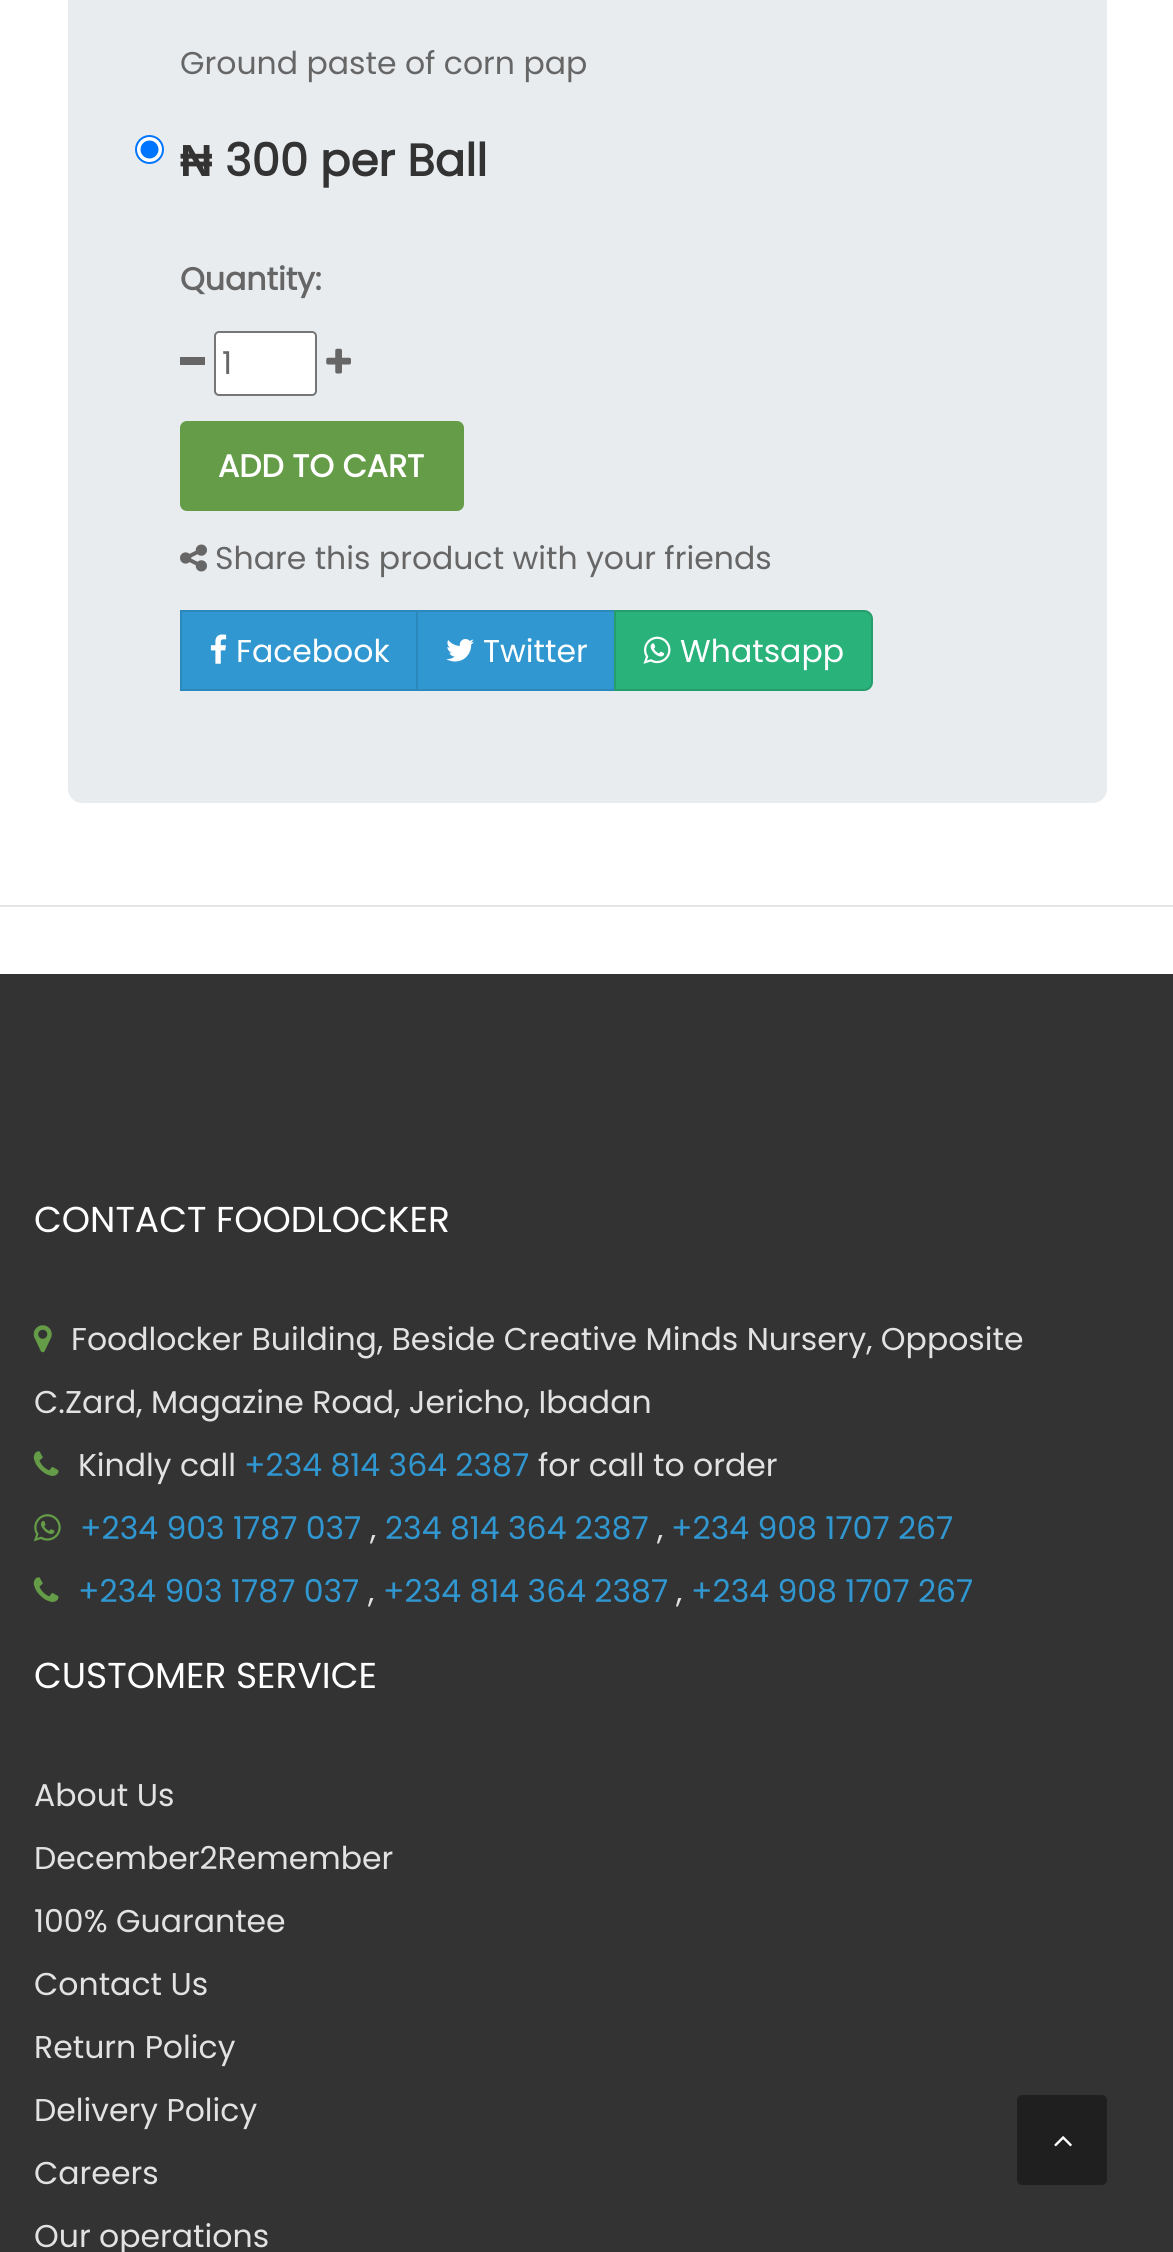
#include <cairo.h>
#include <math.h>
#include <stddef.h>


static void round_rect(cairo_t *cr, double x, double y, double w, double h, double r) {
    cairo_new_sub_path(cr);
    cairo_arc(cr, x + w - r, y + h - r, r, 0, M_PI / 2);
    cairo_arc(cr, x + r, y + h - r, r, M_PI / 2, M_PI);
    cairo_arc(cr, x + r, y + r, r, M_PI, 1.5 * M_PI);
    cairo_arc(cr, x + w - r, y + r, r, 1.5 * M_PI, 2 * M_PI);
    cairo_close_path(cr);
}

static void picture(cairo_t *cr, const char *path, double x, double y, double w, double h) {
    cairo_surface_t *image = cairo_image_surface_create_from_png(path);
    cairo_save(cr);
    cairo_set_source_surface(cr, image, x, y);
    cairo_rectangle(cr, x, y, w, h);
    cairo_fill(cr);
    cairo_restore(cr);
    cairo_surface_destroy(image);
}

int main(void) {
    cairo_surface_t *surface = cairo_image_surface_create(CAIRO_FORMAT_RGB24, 1173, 2252);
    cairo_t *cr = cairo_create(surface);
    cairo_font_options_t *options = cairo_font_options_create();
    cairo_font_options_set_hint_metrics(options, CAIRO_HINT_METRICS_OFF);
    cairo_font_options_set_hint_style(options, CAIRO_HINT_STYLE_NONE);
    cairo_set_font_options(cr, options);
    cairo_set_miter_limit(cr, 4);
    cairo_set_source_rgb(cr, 1, 1, 1);
    cairo_paint(cr);
    cairo_set_source_rgb(cr, 0.914, 0.922, 0.937);
    round_rect(cr, 68, -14, 1039, 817, 14);
    cairo_fill(cr);
    cairo_select_font_face(cr, "Poppins", CAIRO_FONT_SLANT_NORMAL, CAIRO_FONT_WEIGHT_NORMAL);
    cairo_set_font_size(cr, 31.5);
    cairo_set_source_rgb(cr, 0.4, 0.4, 0.4);
    cairo_move_to(cr, 180, 74);
    cairo_show_text(cr, "Ground paste of corn pap");
    cairo_set_source_rgb(cr, 1, 1, 1);
    cairo_new_path(cr);
    cairo_arc(cr, 149.5, 149.5, 13.5, 0, 2 * M_PI);
    cairo_fill_preserve(cr);
    cairo_set_source_rgb(cr, 0, 0.459, 1);
    cairo_stroke(cr);
    cairo_arc(cr, 149.5, 149.5, 9, 0, 2 * M_PI);
    cairo_fill(cr);
    cairo_select_font_face(cr, "Liberation Sans", CAIRO_FONT_SLANT_NORMAL, CAIRO_FONT_WEIGHT_BOLD);
    cairo_set_font_size(cr, 45);
    cairo_set_source_rgb(cr, 0.2, 0.2, 0.2);
    cairo_move_to(cr, 180, 176);
    cairo_show_text(cr, "₦");
    cairo_select_font_face(cr, "Poppins", CAIRO_FONT_SLANT_NORMAL, CAIRO_FONT_WEIGHT_BOLD);
    cairo_move_to(cr, 225, 176);
    cairo_show_text(cr, "300 per Ball");
    cairo_set_font_size(cr, 31.5);
    cairo_set_source_rgb(cr, 0.4, 0.4, 0.4);
    cairo_move_to(cr, 180, 290);
    cairo_show_text(cr, "Quantity:");
    cairo_rectangle(cr, 180, 357, 25, 8);
    cairo_fill(cr);
    cairo_set_source_rgb(cr, 1, 1, 1);
    round_rect(cr, 215, 332, 101, 63, 4);
    cairo_fill_preserve(cr);
    cairo_set_source_rgb(cr, 0.463, 0.463, 0.463);
    cairo_stroke(cr);
    cairo_select_font_face(cr, "Poppins", CAIRO_FONT_SLANT_NORMAL, CAIRO_FONT_WEIGHT_NORMAL);
    cairo_set_source_rgb(cr, 0.4, 0.4, 0.4);
    cairo_move_to(cr, 222, 374);
    cairo_show_text(cr, "1");
    picture(cr, "img1.png", 326, 348, 25, 26);
    cairo_set_source_rgb(cr, 0.392, 0.612, 0.278);
    round_rect(cr, 180, 421, 284, 90, 7);
    cairo_fill(cr);
    cairo_select_font_face(cr, "Poppins", CAIRO_FONT_SLANT_NORMAL, CAIRO_FONT_WEIGHT_BOLD);
    cairo_set_source_rgb(cr, 1, 1, 1);
    cairo_move_to(cr, 218, 477);
    cairo_show_text(cr, "ADD TO CART");
    picture(cr, "img2.png", 180, 544, 27, 28);
    cairo_select_font_face(cr, "Poppins", CAIRO_FONT_SLANT_NORMAL, CAIRO_FONT_WEIGHT_NORMAL);
    cairo_set_source_rgb(cr, 0.4, 0.4, 0.4);
    cairo_move_to(cr, 215, 569);
    cairo_show_text(cr, "Share this product with your friends");
    cairo_set_source_rgb(cr, 0.188, 0.592, 0.82);
    cairo_rectangle(cr, 182, 612, 234, 77);
    cairo_fill(cr);
    cairo_rectangle(cr, 181, 611, 237, 79);
    cairo_set_source_rgb(cr, 0.165, 0.533, 0.741);
    cairo_stroke(cr);
    picture(cr, "img3.png", 210, 634, 17, 30);
    cairo_set_source_rgb(cr, 1, 1, 1);
    cairo_move_to(cr, 236, 662);
    cairo_show_text(cr, "Facebook");
    cairo_set_source_rgb(cr, 0.188, 0.592, 0.82);
    cairo_rectangle(cr, 418, 612, 196, 77);
    cairo_fill(cr);
    cairo_rectangle(cr, 417, 611, 199, 79);
    cairo_set_source_rgb(cr, 0.165, 0.533, 0.741);
    cairo_stroke(cr);
    picture(cr, "img4.png", 446, 639, 28, 23);
    cairo_set_source_rgb(cr, 1, 1, 1);
    cairo_move_to(cr, 483, 662);
    cairo_show_text(cr, "Twitter");
    cairo_set_source_rgb(cr, 0.165, 0.698, 0.482);
    cairo_new_path(cr);
    cairo_move_to(cr, 615, 611);
    cairo_line_to(cr, 864, 611);
    cairo_curve_to(cr, 868.5, 611, 872, 614.5, 872, 619);
    cairo_line_to(cr, 872, 682);
    cairo_curve_to(cr, 872, 686.5, 868.5, 690, 864, 690);
    cairo_line_to(cr, 615, 690);
    cairo_close_path(cr);
    cairo_fill_preserve(cr);
    cairo_set_source_rgb(cr, 0.145, 0.616, 0.427);
    cairo_stroke(cr);
    picture(cr, "img5.png", 643, 636, 28, 28);
    cairo_set_source_rgb(cr, 1, 1, 1);
    cairo_move_to(cr, 680, 662);
    cairo_show_text(cr, "Whatsapp");
    cairo_set_source_rgb(cr, 0.898, 0.898, 0.898);
    cairo_rectangle(cr, 0, 905, 1173, 2);
    cairo_fill(cr);
    cairo_set_source_rgb(cr, 0.2, 0.2, 0.2);
    cairo_rectangle(cr, 0, 974, 1173, 1278);
    cairo_fill(cr);
    cairo_set_font_size(cr, 36);
    cairo_set_source_rgb(cr, 1, 1, 1);
    cairo_move_to(cr, 34, 1232);
    cairo_show_text(cr, "CONTACT FOODLOCKER");
    picture(cr, "img6.png", 33, 1325, 19, 28);
    cairo_set_font_size(cr, 31.5);
    cairo_set_source_rgb(cr, 0.886, 0.886, 0.886);
    cairo_move_to(cr, 71, 1350);
    cairo_show_text(cr, "Foodlocker Building, Beside Creative Minds Nursery, Opposite");
    cairo_move_to(cr, 34, 1413);
    cairo_show_text(cr, "C.Zard, Magazine Road, Jericho, Ibadan");
    picture(cr, "img7.png", 33, 1451, 26, 25);
    cairo_move_to(cr, 78, 1476);
    cairo_show_text(cr, "Kindly call");
    cairo_set_source_rgb(cr, 0.188, 0.592, 0.82);
    cairo_move_to(cr, 244, 1476);
    cairo_show_text(cr, "+234 814 364 2387");
    cairo_set_source_rgb(cr, 0.886, 0.886, 0.886);
    cairo_move_to(cr, 538, 1476);
    cairo_show_text(cr, "for call to order");
    picture(cr, "img8.png", 33, 1514, 28, 28);
    cairo_set_source_rgb(cr, 0.188, 0.592, 0.82);
    cairo_move_to(cr, 80, 1539);
    cairo_show_text(cr, "+234 903 1787 037");
    cairo_set_source_rgb(cr, 0.886, 0.886, 0.886);
    cairo_move_to(cr, 370, 1539);
    cairo_show_text(cr, ",");
    cairo_set_source_rgb(cr, 0.188, 0.592, 0.82);
    cairo_move_to(cr, 385, 1539);
    cairo_show_text(cr, "234 814 364 2387");
    cairo_set_source_rgb(cr, 0.886, 0.886, 0.886);
    cairo_move_to(cr, 657, 1539);
    cairo_show_text(cr, ",");
    cairo_set_source_rgb(cr, 0.188, 0.592, 0.82);
    cairo_move_to(cr, 671, 1539);
    cairo_show_text(cr, "+234 908 1707 267");
    picture(cr, "img7.png", 33, 1577, 26, 25);
    cairo_move_to(cr, 78, 1602);
    cairo_show_text(cr, "+234 903 1787 037");
    cairo_set_source_rgb(cr, 0.886, 0.886, 0.886);
    cairo_move_to(cr, 368, 1602);
    cairo_show_text(cr, ",");
    cairo_set_source_rgb(cr, 0.188, 0.592, 0.82);
    cairo_move_to(cr, 383, 1602);
    cairo_show_text(cr, "+234 814 364 2387");
    cairo_set_source_rgb(cr, 0.886, 0.886, 0.886);
    cairo_move_to(cr, 676, 1602);
    cairo_show_text(cr, ",");
    cairo_set_source_rgb(cr, 0.188, 0.592, 0.82);
    cairo_move_to(cr, 691, 1602);
    cairo_show_text(cr, "+234 908 1707 267");
    cairo_set_font_size(cr, 36);
    cairo_set_source_rgb(cr, 1, 1, 1);
    cairo_move_to(cr, 34, 1688);
    cairo_show_text(cr, "CUSTOMER SERVICE");
    cairo_set_font_size(cr, 31.5);
    cairo_set_source_rgb(cr, 0.886, 0.886, 0.886);
    cairo_move_to(cr, 34, 1806);
    cairo_show_text(cr, "About Us");
    cairo_move_to(cr, 34, 1869);
    cairo_show_text(cr, "December2Remember");
    cairo_move_to(cr, 34, 1932);
    cairo_show_text(cr, "100% Guarantee");
    cairo_move_to(cr, 34, 1995);
    cairo_show_text(cr, "Contact Us");
    cairo_move_to(cr, 34, 2058);
    cairo_show_text(cr, "Return Policy");
    cairo_move_to(cr, 34, 2121);
    cairo_show_text(cr, "Delivery Policy");
    cairo_move_to(cr, 34, 2184);
    cairo_show_text(cr, "Careers");
    cairo_move_to(cr, 34, 2247);
    cairo_show_text(cr, "Our operations");
    cairo_set_source_rgb(cr, 0.122, 0.122, 0.122);
    round_rect(cr, 1017, 2095, 90, 90, 5);
    cairo_fill(cr);
    picture(cr, "img9.png", 1054, 2136, 18, 11);
    cairo_surface_write_to_png(surface, "page.png");
    cairo_font_options_destroy(options);
    cairo_destroy(cr);
    cairo_surface_destroy(surface);
    return 0;
}
